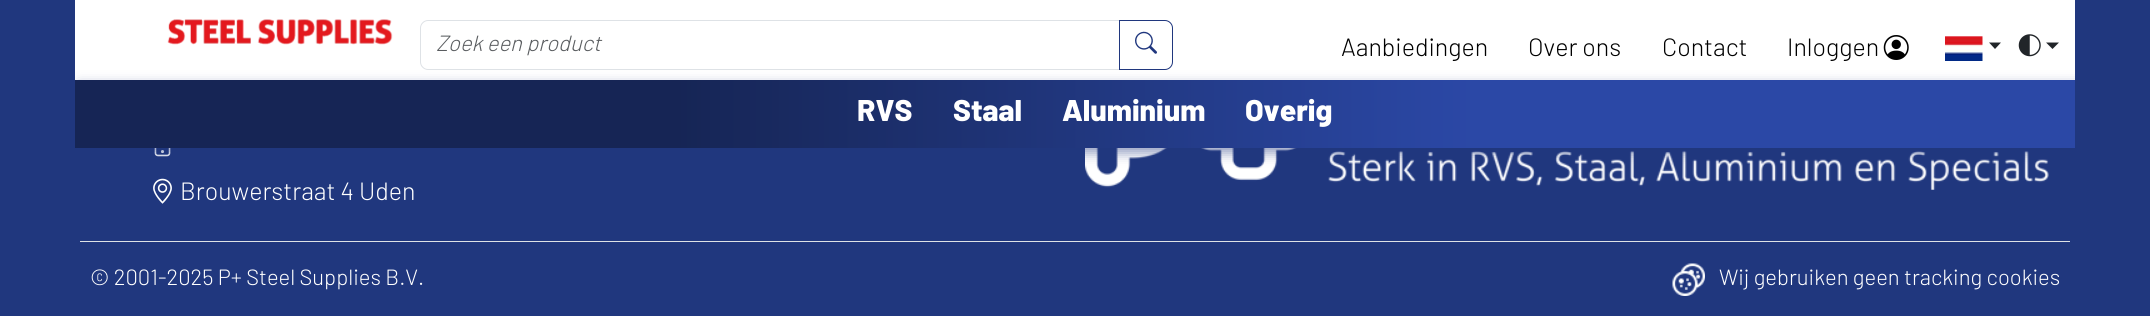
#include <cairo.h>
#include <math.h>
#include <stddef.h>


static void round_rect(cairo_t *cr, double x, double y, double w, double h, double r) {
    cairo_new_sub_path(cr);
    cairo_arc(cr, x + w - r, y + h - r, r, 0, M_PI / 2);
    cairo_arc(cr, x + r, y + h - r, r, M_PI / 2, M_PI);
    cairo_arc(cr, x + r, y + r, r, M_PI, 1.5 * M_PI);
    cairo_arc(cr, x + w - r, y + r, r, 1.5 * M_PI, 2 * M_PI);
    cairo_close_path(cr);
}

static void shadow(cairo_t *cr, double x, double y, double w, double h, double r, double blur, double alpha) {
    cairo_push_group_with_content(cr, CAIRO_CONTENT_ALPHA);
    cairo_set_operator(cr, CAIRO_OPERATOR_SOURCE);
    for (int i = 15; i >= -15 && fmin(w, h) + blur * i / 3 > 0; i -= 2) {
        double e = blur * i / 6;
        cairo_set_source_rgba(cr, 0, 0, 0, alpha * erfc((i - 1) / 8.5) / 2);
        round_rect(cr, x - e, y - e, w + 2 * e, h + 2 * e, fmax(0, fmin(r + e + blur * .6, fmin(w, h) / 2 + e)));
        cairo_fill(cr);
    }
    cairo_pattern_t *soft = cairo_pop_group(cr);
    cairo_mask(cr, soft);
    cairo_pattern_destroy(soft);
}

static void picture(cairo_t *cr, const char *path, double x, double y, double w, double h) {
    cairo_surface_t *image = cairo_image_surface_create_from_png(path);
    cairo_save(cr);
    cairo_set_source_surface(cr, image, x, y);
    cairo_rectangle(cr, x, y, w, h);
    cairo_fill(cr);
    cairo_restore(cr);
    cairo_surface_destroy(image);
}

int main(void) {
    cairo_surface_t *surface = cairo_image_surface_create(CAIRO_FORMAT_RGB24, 2150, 316);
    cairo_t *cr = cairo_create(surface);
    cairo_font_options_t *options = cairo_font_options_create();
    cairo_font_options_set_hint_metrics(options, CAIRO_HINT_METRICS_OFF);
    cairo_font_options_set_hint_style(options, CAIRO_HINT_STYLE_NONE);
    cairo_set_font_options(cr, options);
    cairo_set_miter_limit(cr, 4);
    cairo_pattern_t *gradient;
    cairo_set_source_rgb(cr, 0.125, 0.216, 0.494);
    cairo_paint(cr);
    cairo_set_source_rgb(cr, 1, 1, 1);
    cairo_rectangle(cr, 75, 0, 2000, 80);
    cairo_fill(cr);
    picture(cr, "img1.png", 167, 19, 226, 26);
    cairo_new_path(cr);
    cairo_move_to(cr, 428, 20.5);
    cairo_line_to(cr, 1119.5, 20.5);
    cairo_line_to(cr, 1119.5, 69.5);
    cairo_line_to(cr, 428, 69.5);
    cairo_curve_to(cr, 424, 69.5, 420.5, 66, 420.5, 62);
    cairo_line_to(cr, 420.5, 28);
    cairo_curve_to(cr, 420.5, 24, 424, 20.5, 428, 20.5);
    cairo_close_path(cr);
    cairo_set_source_rgb(cr, 0.871, 0.886, 0.902);
    cairo_set_line_width(cr, 1);
    cairo_stroke(cr);
    cairo_select_font_face(cr, "Barlow Light", CAIRO_FONT_SLANT_ITALIC, CAIRO_FONT_WEIGHT_NORMAL);
    cairo_set_font_size(cr, 22);
    cairo_set_source_rgb(cr, 0.349, 0.361, 0.373);
    cairo_move_to(cr, 436, 51);
    cairo_show_text(cr, "Zoek een product");
    picture(cr, "img6.png", 154, 148, 17, 9);
    picture(cr, "img8.png", 1085, 148, 964, 42);
    cairo_set_source_rgb(cr, 0.125, 0.216, 0.494);
    shadow(cr, 80, 85, 2000, 68, 0, 6, 0.5);
    cairo_new_path(cr);
    cairo_move_to(cr, 1119.5, 20.5);
    cairo_line_to(cr, 1165, 20.5);
    cairo_curve_to(cr, 1169, 20.5, 1172.5, 24, 1172.5, 28);
    cairo_line_to(cr, 1172.5, 62);
    cairo_curve_to(cr, 1172.5, 66, 1169, 69.5, 1165, 69.5);
    cairo_line_to(cr, 1119.5, 69.5);
    cairo_close_path(cr);
    cairo_set_source_rgb(cr, 0.125, 0.216, 0.494);
    cairo_stroke(cr);
    picture(cr, "img2.png", 1135, 31, 22, 23);
    cairo_select_font_face(cr, "Barlow Light", CAIRO_FONT_SLANT_NORMAL, CAIRO_FONT_WEIGHT_NORMAL);
    cairo_set_font_size(cr, 25);
    cairo_set_source_rgb(cr, 0, 0, 0);
    cairo_move_to(cr, 1341, 56);
    cairo_show_text(cr, "Aanbiedingen");
    cairo_move_to(cr, 1528, 56);
    cairo_show_text(cr, "Over ons");
    cairo_move_to(cr, 1662, 56);
    cairo_show_text(cr, "Contact");
    cairo_move_to(cr, 1787, 56);
    cairo_show_text(cr, "Inloggen");
    picture(cr, "img3.png", 1883, 35, 26, 25);
    picture(cr, "img4.png", 1945, 36, 38, 25);
    cairo_set_source_rgb(cr, 0.129, 0.145, 0.161);
    cairo_new_path(cr);
    cairo_move_to(cr, 1989, 42.5);
    cairo_line_to(cr, 2001, 42.5);
    cairo_line_to(cr, 1995, 49);
    cairo_close_path(cr);
    cairo_fill(cr);
    picture(cr, "img5.png", 2018, 34, 23, 23);
    cairo_new_path(cr);
    cairo_move_to(cr, 2046, 42.5);
    cairo_line_to(cr, 2059, 42.5);
    cairo_line_to(cr, 2052.5, 49);
    cairo_close_path(cr);
    cairo_fill(cr);
    gradient = cairo_pattern_create_linear(75, 114, 2075, 114);
    cairo_pattern_add_color_stop_rgba(gradient, 0.3, 0.086, 0.145, 0.333, 1);
    cairo_pattern_add_color_stop_rgba(gradient, 0.7, 0.169, 0.282, 0.651, 1);
    cairo_set_source(cr, gradient);
    cairo_pattern_destroy(gradient);
    cairo_rectangle(cr, 75, 80, 2000, 68);
    cairo_fill(cr);
    cairo_select_font_face(cr, "Barlow ExtraBold", CAIRO_FONT_SLANT_NORMAL, CAIRO_FONT_WEIGHT_NORMAL);
    cairo_set_font_size(cr, 30);
    cairo_set_source_rgb(cr, 1, 1, 1);
    cairo_move_to(cr, 857, 121);
    cairo_show_text(cr, "RVS");
    cairo_move_to(cr, 953, 121);
    cairo_show_text(cr, "Staal");
    cairo_move_to(cr, 1062, 121);
    cairo_show_text(cr, "Aluminium");
    cairo_move_to(cr, 1245, 121);
    cairo_show_text(cr, "Overig");
    picture(cr, "img7.png", 153, 178, 19, 26);
    cairo_select_font_face(cr, "Barlow Light", CAIRO_FONT_SLANT_NORMAL, CAIRO_FONT_WEIGHT_NORMAL);
    cairo_set_font_size(cr, 25);
    cairo_move_to(cr, 180, 200);
    cairo_show_text(cr, "Brouwerstraat 4 Uden");
    cairo_set_source_rgb(cr, 0.871, 0.886, 0.902);
    cairo_rectangle(cr, 80, 241, 1990, 1);
    cairo_fill(cr);
    cairo_set_font_size(cr, 22);
    cairo_set_source_rgb(cr, 1, 1, 1);
    cairo_move_to(cr, 90, 285);
    cairo_show_text(cr, "© 2001-2025 P+ Steel Supplies B.V.");
    picture(cr, "img9.png", 1672, 263, 33, 33);
    cairo_move_to(cr, 1719, 285);
    cairo_show_text(cr, "Wij gebruiken geen tracking cookies");
    cairo_surface_write_to_png(surface, "page.png");
    cairo_font_options_destroy(options);
    cairo_destroy(cr);
    cairo_surface_destroy(surface);
    return 0;
}
